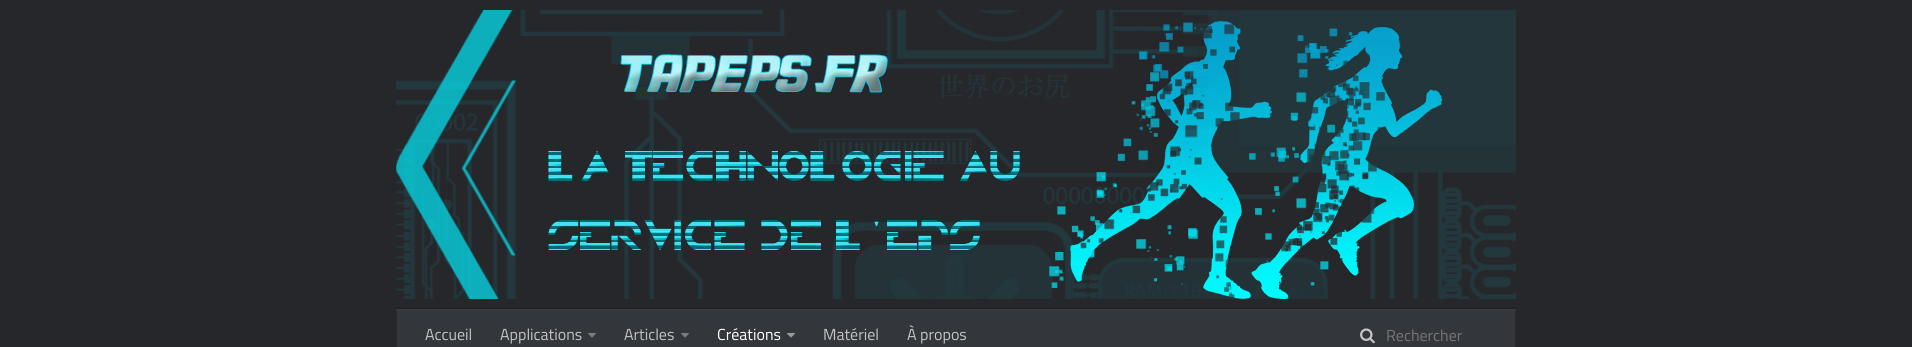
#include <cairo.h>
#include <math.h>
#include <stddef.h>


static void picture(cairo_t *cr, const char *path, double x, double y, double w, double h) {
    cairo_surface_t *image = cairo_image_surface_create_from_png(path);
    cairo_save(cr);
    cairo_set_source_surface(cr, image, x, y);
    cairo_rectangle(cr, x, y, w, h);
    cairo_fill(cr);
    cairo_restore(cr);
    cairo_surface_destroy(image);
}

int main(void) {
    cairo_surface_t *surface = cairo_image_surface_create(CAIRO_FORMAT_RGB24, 1912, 347);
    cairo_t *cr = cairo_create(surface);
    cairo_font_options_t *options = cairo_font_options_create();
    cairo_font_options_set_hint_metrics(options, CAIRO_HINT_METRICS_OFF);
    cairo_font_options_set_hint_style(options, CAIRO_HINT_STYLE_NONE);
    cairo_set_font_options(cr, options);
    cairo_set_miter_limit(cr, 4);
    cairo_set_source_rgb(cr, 0.149, 0.153, 0.169);
    cairo_paint(cr);
    picture(cr, "img1.png", 396, 10, 1120, 289);
    cairo_set_source_rgb(cr, 0.118, 0.122, 0.133);
    cairo_rectangle(cr, 396, 308, 1120, 1);
    cairo_fill(cr);
    cairo_set_source_rgb(cr, 0.2, 0.212, 0.231);
    cairo_rectangle(cr, 397, 310, 1118, 37);
    cairo_fill(cr);
    cairo_set_source_rgb(cr, 0.239, 0.251, 0.271);
    cairo_rectangle(cr, 396, 309, 1120, 1);
    cairo_fill(cr);
    cairo_set_source_rgb(cr, 0.161, 0.169, 0.184);
    cairo_rectangle(cr, 1515, 309, 1, 38);
    cairo_fill(cr);
    cairo_set_source_rgb(cr, 0.204, 0.212, 0.224);
    cairo_rectangle(cr, 1515, 309, 1, 1);
    cairo_fill(cr);
    cairo_set_source_rgb(cr, 0.161, 0.169, 0.184);
    cairo_rectangle(cr, 396, 309, 1, 38);
    cairo_fill(cr);
    cairo_set_source_rgb(cr, 0.204, 0.212, 0.224);
    cairo_rectangle(cr, 396, 309, 1, 1);
    cairo_fill(cr);
    cairo_select_font_face(cr, "Titillium Web", CAIRO_FONT_SLANT_NORMAL, CAIRO_FONT_WEIGHT_NORMAL);
    cairo_set_font_size(cr, 16);
    cairo_set_source_rgb(cr, 0.761, 0.765, 0.769);
    cairo_move_to(cr, 425, 340);
    cairo_show_text(cr, "Accueil");
    cairo_move_to(cr, 500, 340);
    cairo_show_text(cr, "Applications");
    picture(cr, "img2.png", 588, 333, 8, 5);
    cairo_move_to(cr, 624, 340);
    cairo_show_text(cr, "Articles");
    picture(cr, "img2.png", 681, 333, 8, 5);
    cairo_set_source_rgb(cr, 1, 1, 1);
    cairo_move_to(cr, 717, 340);
    cairo_show_text(cr, "Créations");
    picture(cr, "img3.png", 787, 333, 8, 5);
    cairo_set_source_rgb(cr, 0.761, 0.765, 0.769);
    cairo_move_to(cr, 823, 340);
    cairo_show_text(cr, "Matériel");
    cairo_move_to(cr, 907, 340);
    cairo_show_text(cr, "À propos");
    picture(cr, "img4.png", 1360, 328, 15, 16);
    cairo_set_source_rgb(cr, 0.459, 0.459, 0.459);
    cairo_move_to(cr, 1386, 341);
    cairo_show_text(cr, "Rechercher");
    cairo_surface_write_to_png(surface, "page.png");
    cairo_font_options_destroy(options);
    cairo_destroy(cr);
    cairo_surface_destroy(surface);
    return 0;
}
